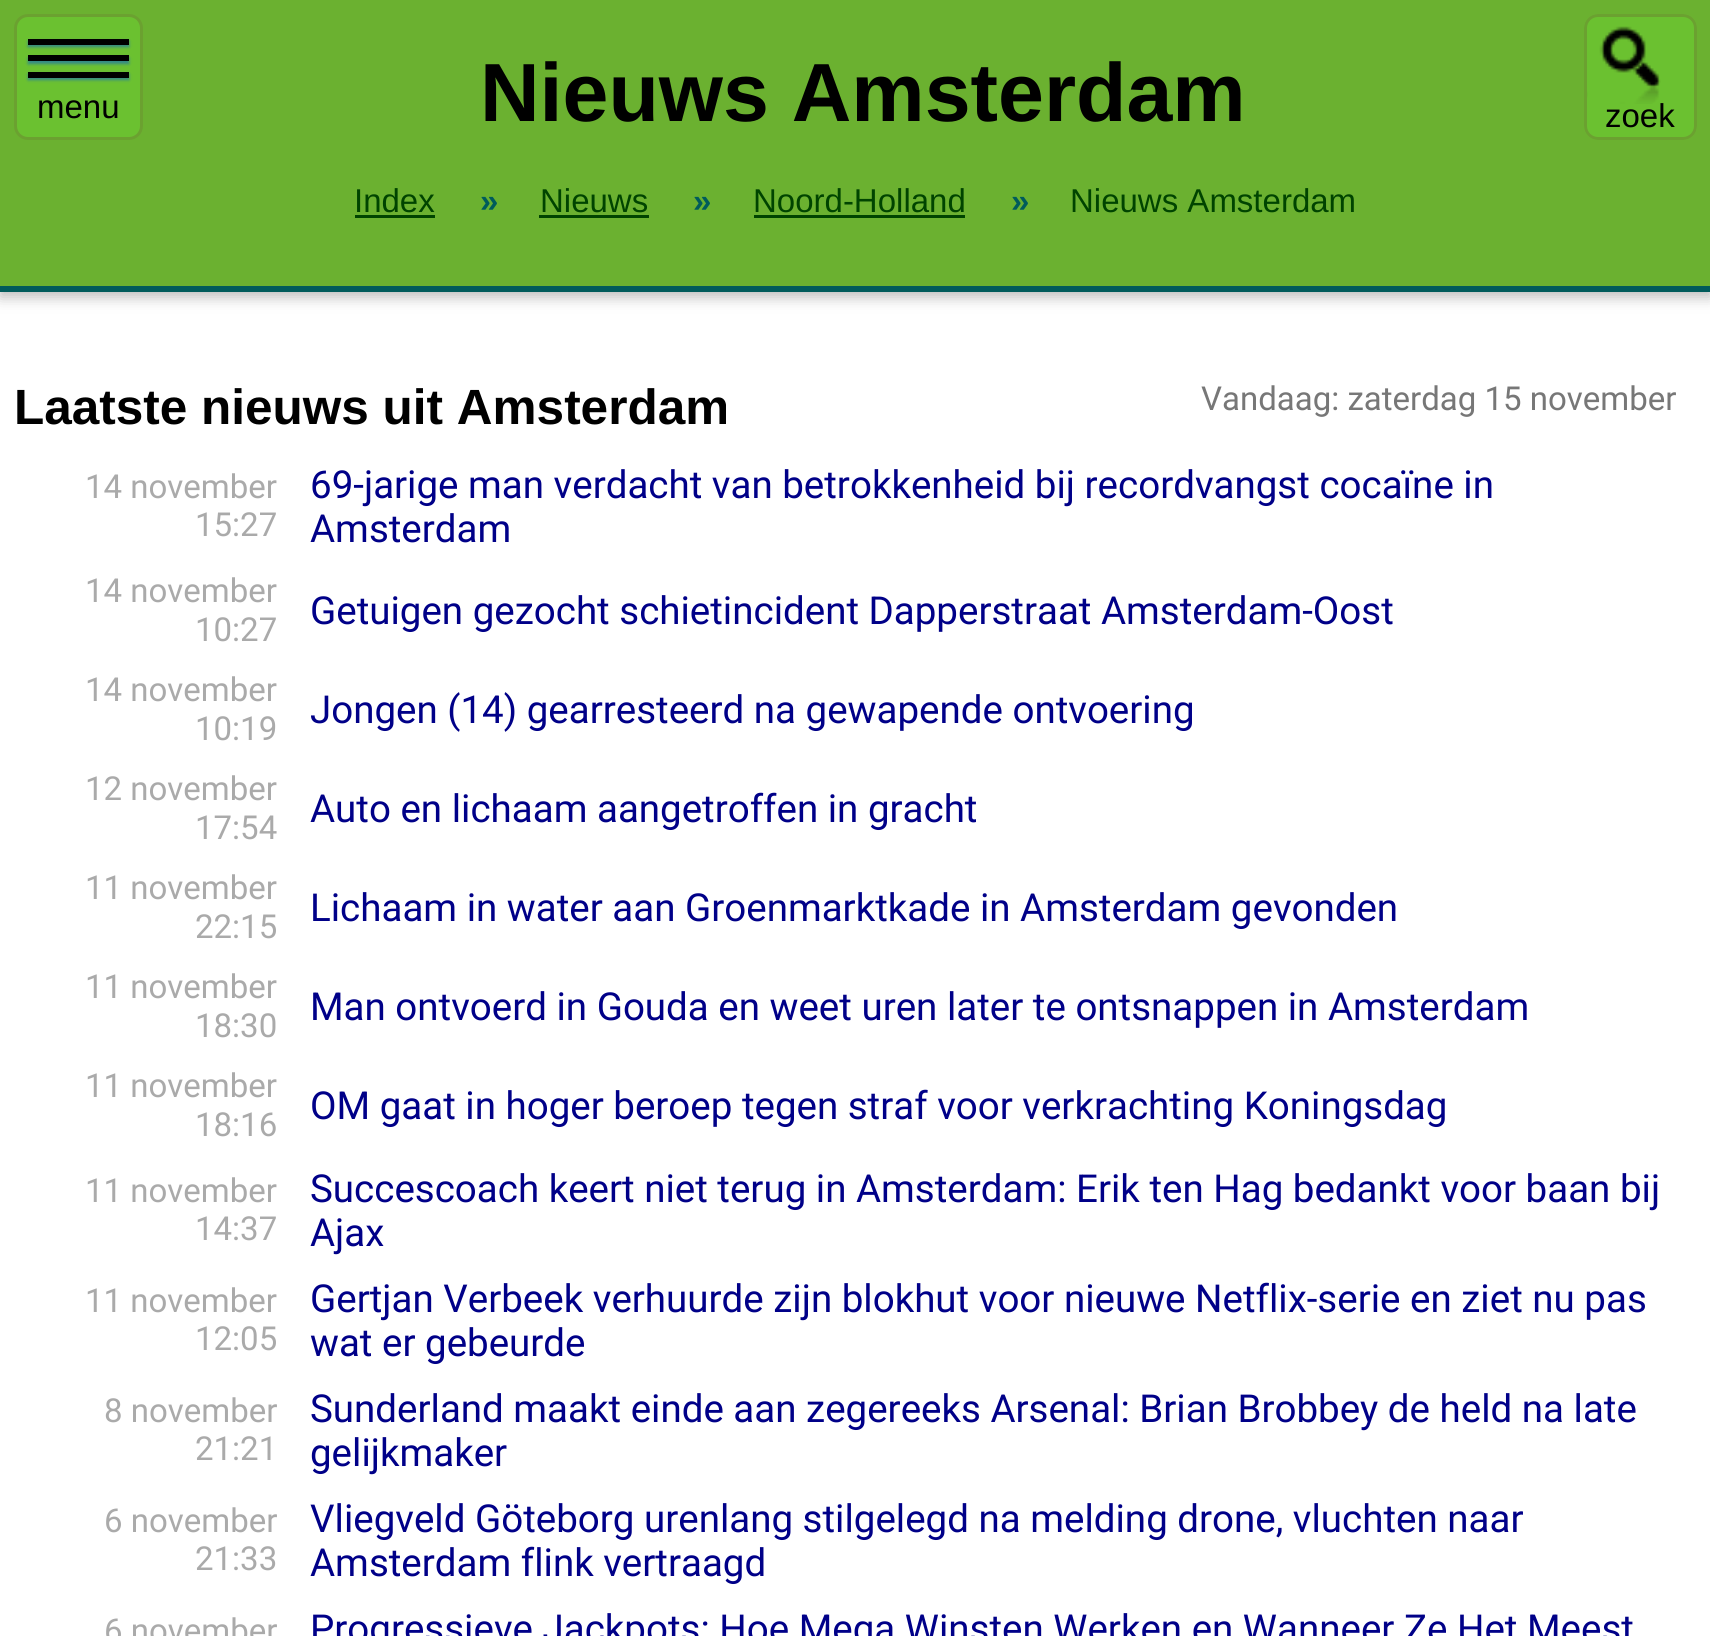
#include <cairo.h>
#include <math.h>
#include <stddef.h>


static void round_rect(cairo_t *cr, double x, double y, double w, double h, double r) {
    cairo_new_sub_path(cr);
    cairo_arc(cr, x + w - r, y + h - r, r, 0, M_PI / 2);
    cairo_arc(cr, x + r, y + h - r, r, M_PI / 2, M_PI);
    cairo_arc(cr, x + r, y + r, r, M_PI, 1.5 * M_PI);
    cairo_arc(cr, x + w - r, y + r, r, 1.5 * M_PI, 2 * M_PI);
    cairo_close_path(cr);
}

static void shadow(cairo_t *cr, double x, double y, double w, double h, double r, double blur, double alpha) {
    cairo_push_group_with_content(cr, CAIRO_CONTENT_ALPHA);
    cairo_set_operator(cr, CAIRO_OPERATOR_SOURCE);
    for (int i = 15; i >= -15 && fmin(w, h) + blur * i / 3 > 0; i -= 2) {
        double e = blur * i / 6;
        cairo_set_source_rgba(cr, 0, 0, 0, alpha * erfc((i - 1) / 8.5) / 2);
        round_rect(cr, x - e, y - e, w + 2 * e, h + 2 * e, fmax(0, fmin(r + e + blur * .6, fmin(w, h) / 2 + e)));
        cairo_fill(cr);
    }
    cairo_pattern_t *soft = cairo_pop_group(cr);
    cairo_mask(cr, soft);
    cairo_pattern_destroy(soft);
}

static void picture(cairo_t *cr, const char *path, double x, double y, double w, double h) {
    cairo_surface_t *image = cairo_image_surface_create_from_png(path);
    cairo_save(cr);
    cairo_set_source_surface(cr, image, x, y);
    cairo_rectangle(cr, x, y, w, h);
    cairo_fill(cr);
    cairo_restore(cr);
    cairo_surface_destroy(image);
}

int main(void) {
    cairo_surface_t *surface = cairo_image_surface_create(CAIRO_FORMAT_RGB24, 1710, 1636);
    cairo_t *cr = cairo_create(surface);
    cairo_font_options_t *options = cairo_font_options_create();
    cairo_font_options_set_hint_metrics(options, CAIRO_HINT_METRICS_OFF);
    cairo_font_options_set_hint_style(options, CAIRO_HINT_STYLE_NONE);
    cairo_set_font_options(cr, options);
    cairo_set_miter_limit(cr, 4);
    cairo_set_source_rgb(cr, 1, 1, 1);
    cairo_paint(cr);
    cairo_set_source_rgb(cr, 0.733, 0.733, 0.733);
    shadow(cr, 0, 6, 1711, 291, 0, 7, 1);
    cairo_set_source_rgb(cr, 0.42, 0.694, 0.188);
    cairo_rectangle(cr, 0, 0, 1710, 286);
    cairo_fill(cr);
    cairo_set_source_rgb(cr, 0, 0.357, 0.357);
    cairo_rectangle(cr, 0, 286, 1710, 6);
    cairo_fill(cr);
    cairo_set_source_rgb(cr, 0.42, 0.757, 0.188);
    round_rect(cr, 15.5, 15.5, 126, 123, 12.5);
    cairo_fill_preserve(cr);
    cairo_set_source_rgb(cr, 0.42, 0.631, 0.188);
    cairo_set_line_width(cr, 3);
    cairo_stroke(cr);
    cairo_set_source_rgb(cr, 0.2, 0.533, 0.533);
    shadow(cr, 28, 41, 101, 6, 0, 1.5, 1);
    cairo_set_source_rgb(cr, 0, 0, 0);
    cairo_rectangle(cr, 28, 39, 101, 6);
    cairo_fill(cr);
    cairo_set_source_rgb(cr, 0.2, 0.533, 0.533);
    shadow(cr, 28, 58, 101, 6, 0, 1.5, 1);
    cairo_set_source_rgb(cr, 0, 0, 0);
    cairo_rectangle(cr, 28, 55, 101, 6);
    cairo_fill(cr);
    cairo_set_source_rgb(cr, 0.2, 0.533, 0.533);
    shadow(cr, 28, 74, 101, 6, 0, 1.5, 1);
    cairo_set_source_rgb(cr, 0, 0, 0);
    cairo_rectangle(cr, 28, 72, 101, 6);
    cairo_fill(cr);
    cairo_select_font_face(cr, "Liberation Sans", CAIRO_FONT_SLANT_NORMAL, CAIRO_FONT_WEIGHT_NORMAL);
    cairo_set_font_size(cr, 33);
    cairo_move_to(cr, 37, 118);
    cairo_show_text(cr, "menu");
    cairo_select_font_face(cr, "Liberation Sans", CAIRO_FONT_SLANT_NORMAL, CAIRO_FONT_WEIGHT_BOLD);
    cairo_set_font_size(cr, 82.5);
    cairo_move_to(cr, 480, 121);
    cairo_show_text(cr, "Nieuws Amsterdam");
    cairo_select_font_face(cr, "Liberation Sans", CAIRO_FONT_SLANT_NORMAL, CAIRO_FONT_WEIGHT_NORMAL);
    cairo_set_font_size(cr, 33);
    cairo_set_source_rgb(cr, 0, 0.267, 0);
    cairo_move_to(cr, 354, 212);
    cairo_show_text(cr, "Index");
    cairo_rectangle(cr, 355, 215, 80, 3);
    cairo_fill(cr);
    cairo_select_font_face(cr, "Liberation Sans", CAIRO_FONT_SLANT_NORMAL, CAIRO_FONT_WEIGHT_BOLD);
    cairo_set_source_rgb(cr, 0, 0.357, 0.357);
    cairo_move_to(cr, 480, 212);
    cairo_show_text(cr, "»");
    cairo_select_font_face(cr, "Liberation Sans", CAIRO_FONT_SLANT_NORMAL, CAIRO_FONT_WEIGHT_NORMAL);
    cairo_set_source_rgb(cr, 0, 0.267, 0);
    cairo_move_to(cr, 540, 212);
    cairo_show_text(cr, "Nieuws");
    cairo_rectangle(cr, 539, 215, 110, 3);
    cairo_fill(cr);
    cairo_select_font_face(cr, "Liberation Sans", CAIRO_FONT_SLANT_NORMAL, CAIRO_FONT_WEIGHT_BOLD);
    cairo_set_source_rgb(cr, 0, 0.357, 0.357);
    cairo_move_to(cr, 693, 212);
    cairo_show_text(cr, "»");
    cairo_select_font_face(cr, "Liberation Sans", CAIRO_FONT_SLANT_NORMAL, CAIRO_FONT_WEIGHT_NORMAL);
    cairo_set_source_rgb(cr, 0, 0.267, 0);
    cairo_move_to(cr, 753, 212);
    cairo_show_text(cr, "Noord-Holland");
    cairo_rectangle(cr, 754, 215, 211, 3);
    cairo_fill(cr);
    cairo_select_font_face(cr, "Liberation Sans", CAIRO_FONT_SLANT_NORMAL, CAIRO_FONT_WEIGHT_BOLD);
    cairo_set_source_rgb(cr, 0, 0.357, 0.357);
    cairo_move_to(cr, 1011, 212);
    cairo_show_text(cr, "»");
    cairo_select_font_face(cr, "Liberation Sans", CAIRO_FONT_SLANT_NORMAL, CAIRO_FONT_WEIGHT_NORMAL);
    cairo_set_source_rgb(cr, 0, 0.267, 0);
    cairo_move_to(cr, 1070, 212);
    cairo_show_text(cr, "Nieuws Amsterdam");
    cairo_set_source_rgb(cr, 0.42, 0.757, 0.188);
    round_rect(cr, 1584, 14, 113, 126, 14);
    cairo_fill(cr);
    picture(cr, "img1.png", 1587, 26, 74, 78);
    round_rect(cr, 1585.5, 15.5, 110, 123, 12.5);
    cairo_set_source_rgb(cr, 0.42, 0.631, 0.188);
    cairo_stroke(cr);
    cairo_set_source_rgb(cr, 0, 0, 0);
    cairo_move_to(cr, 1605, 127);
    cairo_show_text(cr, "zoek");
    cairo_select_font_face(cr, "Liberation Sans", CAIRO_FONT_SLANT_NORMAL, CAIRO_FONT_WEIGHT_BOLD);
    cairo_set_font_size(cr, 49.5);
    cairo_move_to(cr, 14, 424);
    cairo_show_text(cr, "Laatste nieuws uit Amsterdam");
    cairo_select_font_face(cr, "Roboto", CAIRO_FONT_SLANT_NORMAL, CAIRO_FONT_WEIGHT_NORMAL);
    cairo_set_font_size(cr, 33);
    cairo_set_source_rgb(cr, 0.467, 0.467, 0.467);
    cairo_move_to(cr, 1201, 410);
    cairo_show_text(cr, "Vandaag: zaterdag 15 november");
    cairo_set_source_rgb(cr, 0.667, 0.667, 0.667);
    cairo_move_to(cr, 85, 498);
    cairo_show_text(cr, "14 november");
    cairo_move_to(cr, 195, 536);
    cairo_show_text(cr, "15:27");
    cairo_set_font_size(cr, 38.5);
    cairo_set_source_rgb(cr, 0, 0, 0.533);
    cairo_move_to(cr, 310, 498);
    cairo_show_text(cr, "69-jarige man verdacht van betrokkenheid bij recordvangst cocaïne in");
    cairo_move_to(cr, 310, 542);
    cairo_show_text(cr, "Amsterdam");
    cairo_set_font_size(cr, 33);
    cairo_set_source_rgb(cr, 0.667, 0.667, 0.667);
    cairo_move_to(cr, 85, 602);
    cairo_show_text(cr, "14 november");
    cairo_move_to(cr, 195, 641);
    cairo_show_text(cr, "10:27");
    cairo_set_font_size(cr, 38.5);
    cairo_set_source_rgb(cr, 0, 0, 0.533);
    cairo_move_to(cr, 310, 624);
    cairo_show_text(cr, "Getuigen gezocht schietincident Dapperstraat Amsterdam-Oost");
    cairo_set_font_size(cr, 33);
    cairo_set_source_rgb(cr, 0.667, 0.667, 0.667);
    cairo_move_to(cr, 85, 701);
    cairo_show_text(cr, "14 november");
    cairo_move_to(cr, 195, 740);
    cairo_show_text(cr, "10:19");
    cairo_set_font_size(cr, 38.5);
    cairo_set_source_rgb(cr, 0, 0, 0.533);
    cairo_move_to(cr, 310, 723);
    cairo_show_text(cr, "Jongen (14) gearresteerd na gewapende ontvoering");
    cairo_set_font_size(cr, 33);
    cairo_set_source_rgb(cr, 0.667, 0.667, 0.667);
    cairo_move_to(cr, 85, 800);
    cairo_show_text(cr, "12 november");
    cairo_move_to(cr, 195, 839);
    cairo_show_text(cr, "17:54");
    cairo_set_font_size(cr, 38.5);
    cairo_set_source_rgb(cr, 0, 0, 0.533);
    cairo_move_to(cr, 310, 822);
    cairo_show_text(cr, "Auto en lichaam aangetroffen in gracht");
    cairo_set_font_size(cr, 33);
    cairo_set_source_rgb(cr, 0.667, 0.667, 0.667);
    cairo_move_to(cr, 85, 899);
    cairo_show_text(cr, "11 november");
    cairo_move_to(cr, 195, 938);
    cairo_show_text(cr, "22:15");
    cairo_set_font_size(cr, 38.5);
    cairo_set_source_rgb(cr, 0, 0, 0.533);
    cairo_move_to(cr, 310, 921);
    cairo_show_text(cr, "Lichaam in water aan Groenmarktkade in Amsterdam gevonden");
    cairo_set_font_size(cr, 33);
    cairo_set_source_rgb(cr, 0.667, 0.667, 0.667);
    cairo_move_to(cr, 85, 998);
    cairo_show_text(cr, "11 november");
    cairo_move_to(cr, 195, 1037);
    cairo_show_text(cr, "18:30");
    cairo_set_font_size(cr, 38.5);
    cairo_set_source_rgb(cr, 0, 0, 0.533);
    cairo_move_to(cr, 310, 1020);
    cairo_show_text(cr, "Man ontvoerd in Gouda en weet uren later te ontsnappen in Amsterdam");
    cairo_set_font_size(cr, 33);
    cairo_set_source_rgb(cr, 0.667, 0.667, 0.667);
    cairo_move_to(cr, 85, 1097);
    cairo_show_text(cr, "11 november");
    cairo_move_to(cr, 195, 1136);
    cairo_show_text(cr, "18:16");
    cairo_set_font_size(cr, 38.5);
    cairo_set_source_rgb(cr, 0, 0, 0.533);
    cairo_move_to(cr, 310, 1119);
    cairo_show_text(cr, "OM gaat in hoger beroep tegen straf voor verkrachting Koningsdag");
    cairo_set_font_size(cr, 33);
    cairo_set_source_rgb(cr, 0.667, 0.667, 0.667);
    cairo_move_to(cr, 85, 1202);
    cairo_show_text(cr, "11 november");
    cairo_move_to(cr, 195, 1240);
    cairo_show_text(cr, "14:37");
    cairo_set_font_size(cr, 38.5);
    cairo_set_source_rgb(cr, 0, 0, 0.533);
    cairo_move_to(cr, 310, 1202);
    cairo_show_text(cr, "Succescoach keert niet terug in Amsterdam: Erik ten Hag bedankt voor baan bij");
    cairo_move_to(cr, 310, 1246);
    cairo_show_text(cr, "Ajax");
    cairo_set_font_size(cr, 33);
    cairo_set_source_rgb(cr, 0.667, 0.667, 0.667);
    cairo_move_to(cr, 85, 1312);
    cairo_show_text(cr, "11 november");
    cairo_move_to(cr, 195, 1350);
    cairo_show_text(cr, "12:05");
    cairo_set_font_size(cr, 38.5);
    cairo_set_source_rgb(cr, 0, 0, 0.533);
    cairo_move_to(cr, 310, 1312);
    cairo_show_text(cr, "Gertjan Verbeek verhuurde zijn blokhut voor nieuwe Netflix-serie en ziet nu pas");
    cairo_move_to(cr, 310, 1356);
    cairo_show_text(cr, "wat er gebeurde");
    cairo_set_font_size(cr, 33);
    cairo_set_source_rgb(cr, 0.667, 0.667, 0.667);
    cairo_move_to(cr, 104, 1422);
    cairo_show_text(cr, "8 november");
    cairo_move_to(cr, 195, 1460);
    cairo_show_text(cr, "21:21");
    cairo_set_font_size(cr, 38.5);
    cairo_set_source_rgb(cr, 0, 0, 0.533);
    cairo_move_to(cr, 310, 1422);
    cairo_show_text(cr, "Sunderland maakt einde aan zegereeks Arsenal: Brian Brobbey de held na late");
    cairo_move_to(cr, 310, 1466);
    cairo_show_text(cr, "gelijkmaker");
    cairo_set_font_size(cr, 33);
    cairo_set_source_rgb(cr, 0.667, 0.667, 0.667);
    cairo_move_to(cr, 104, 1532);
    cairo_show_text(cr, "6 november");
    cairo_move_to(cr, 195, 1570);
    cairo_show_text(cr, "21:33");
    cairo_set_font_size(cr, 38.5);
    cairo_set_source_rgb(cr, 0, 0, 0.533);
    cairo_move_to(cr, 310, 1532);
    cairo_show_text(cr, "Vliegveld Göteborg urenlang stilgelegd na melding drone, vluchten naar");
    cairo_move_to(cr, 310, 1576);
    cairo_show_text(cr, "Amsterdam flink vertraagd");
    cairo_set_font_size(cr, 33);
    cairo_set_source_rgb(cr, 0.667, 0.667, 0.667);
    cairo_move_to(cr, 104, 1642);
    cairo_show_text(cr, "6 november");
    cairo_set_font_size(cr, 38.5);
    cairo_set_source_rgb(cr, 0, 0, 0.533);
    cairo_move_to(cr, 310, 1642);
    cairo_show_text(cr, "Progressieve Jackpots: Hoe Mega Winsten Werken en Wanneer Ze Het Meest");
    cairo_surface_write_to_png(surface, "page.png");
    cairo_font_options_destroy(options);
    cairo_destroy(cr);
    cairo_surface_destroy(surface);
    return 0;
}
